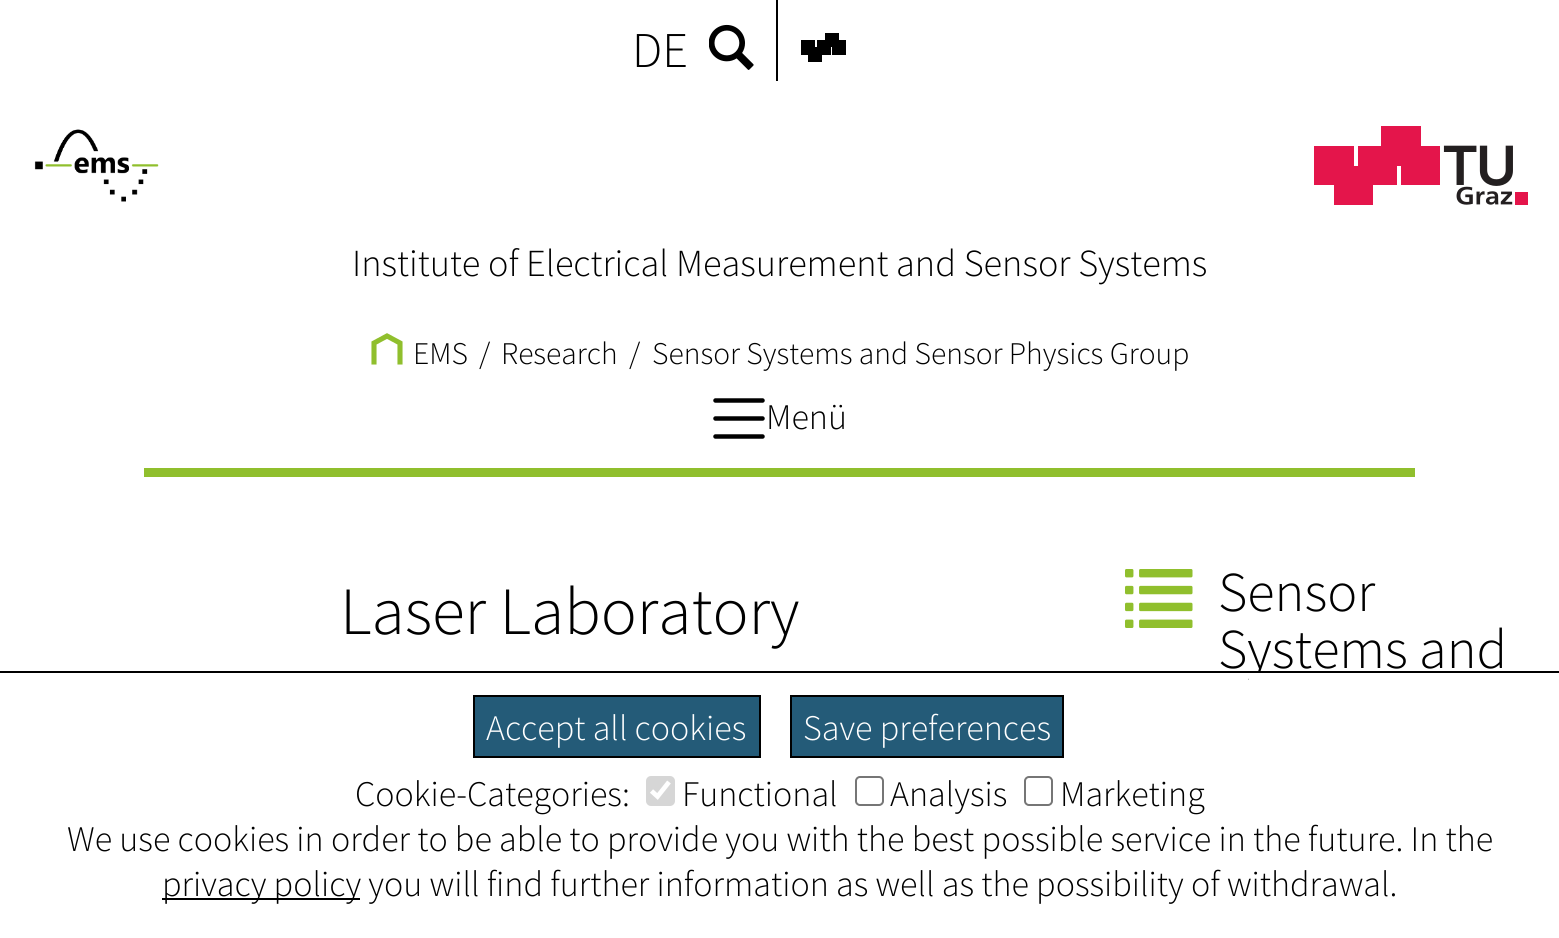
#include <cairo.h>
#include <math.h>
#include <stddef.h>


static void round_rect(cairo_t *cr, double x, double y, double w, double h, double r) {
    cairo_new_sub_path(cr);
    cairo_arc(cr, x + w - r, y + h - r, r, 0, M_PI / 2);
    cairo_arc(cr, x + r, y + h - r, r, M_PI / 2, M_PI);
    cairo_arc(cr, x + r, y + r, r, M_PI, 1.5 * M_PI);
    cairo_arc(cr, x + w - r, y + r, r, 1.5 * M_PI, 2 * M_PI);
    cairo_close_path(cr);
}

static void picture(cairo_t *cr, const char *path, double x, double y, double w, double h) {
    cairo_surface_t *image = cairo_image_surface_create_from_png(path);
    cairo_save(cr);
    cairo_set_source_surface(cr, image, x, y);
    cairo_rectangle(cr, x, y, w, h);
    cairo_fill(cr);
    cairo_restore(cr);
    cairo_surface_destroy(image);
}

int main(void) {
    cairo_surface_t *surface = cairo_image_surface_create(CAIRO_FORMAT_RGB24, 1559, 938);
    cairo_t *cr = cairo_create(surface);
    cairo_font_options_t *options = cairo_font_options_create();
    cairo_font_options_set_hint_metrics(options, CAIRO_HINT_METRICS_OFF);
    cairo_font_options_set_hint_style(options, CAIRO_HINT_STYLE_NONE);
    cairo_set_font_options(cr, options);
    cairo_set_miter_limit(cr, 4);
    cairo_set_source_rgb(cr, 1, 1, 1);
    cairo_paint(cr);
    cairo_set_source_rgb(cr, 0, 0, 0);
    cairo_rectangle(cr, 776, 0, 2, 81);
    cairo_fill(cr);
    cairo_select_font_face(cr, "Source Sans Pro Light", CAIRO_FONT_SLANT_NORMAL, CAIRO_FONT_WEIGHT_NORMAL);
    cairo_set_font_size(cr, 50);
    cairo_move_to(cr, 632, 67);
    cairo_show_text(cr, "DE");
    picture(cr, "img1.png", 709, 24, 45, 46);
    cairo_rectangle(cr, 801, 40, 14, 15);
    cairo_fill(cr);
    cairo_rectangle(cr, 817, 40, 14, 15);
    cairo_fill(cr);
    cairo_rectangle(cr, 832, 40, 14, 15);
    cairo_fill(cr);
    cairo_rectangle(cr, 825, 33, 14, 14);
    cairo_fill(cr);
    cairo_rectangle(cr, 808, 47, 14, 15);
    cairo_fill(cr);
    picture(cr, "img2.png", 1314, 126, 214, 79);
    picture(cr, "img3.png", 34, 129, 125, 73);
    cairo_set_font_size(cr, 38.25);
    cairo_move_to(cr, 352, 276);
    cairo_show_text(cr, "Institute of Electrical Measurement and Sensor Systems");
    cairo_set_font_size(cr, 31.5);
    cairo_move_to(cr, 413, 364);
    cairo_show_text(cr, "EMS");
    cairo_new_path(cr);
    cairo_move_to(cr, 374, 362);
    cairo_line_to(cr, 374, 343);
    cairo_line_to(cr, 387, 336);
    cairo_line_to(cr, 400, 343);
    cairo_line_to(cr, 400, 362);
    cairo_set_source_rgb(cr, 0.565, 0.749, 0.176);
    cairo_set_line_width(cr, 5.1);
    cairo_set_line_cap(cr, CAIRO_LINE_CAP_SQUARE);
    cairo_stroke(cr);
    cairo_set_source_rgb(cr, 0, 0, 0);
    cairo_move_to(cr, 479, 364);
    cairo_show_text(cr, "/");
    cairo_move_to(cr, 501, 364);
    cairo_show_text(cr, "Research");
    cairo_move_to(cr, 629, 364);
    cairo_show_text(cr, "/");
    cairo_move_to(cr, 652, 364);
    cairo_show_text(cr, "Sensor Systems and Sensor Physics Group");
    cairo_new_path(cr);
    cairo_move_to(cr, 715.5, 400.5);
    cairo_line_to(cr, 762.5, 400.5);
    cairo_move_to(cr, 715.5, 418.5);
    cairo_line_to(cr, 762.5, 418.5);
    cairo_move_to(cr, 715.5, 436.5);
    cairo_line_to(cr, 762.5, 436.5);
    cairo_set_line_width(cr, 4.5);
    cairo_set_line_cap(cr, CAIRO_LINE_CAP_ROUND);
    cairo_stroke(cr);
    cairo_set_font_size(cr, 36);
    cairo_move_to(cr, 766, 429);
    cairo_show_text(cr, "Menü");
    cairo_set_source_rgb(cr, 0.565, 0.749, 0.176);
    cairo_rectangle(cr, 144, 468, 1271, 9);
    cairo_fill(cr);
    cairo_set_font_size(cr, 67.5);
    cairo_set_source_rgb(cr, 0, 0, 0);
    cairo_move_to(cr, 340, 634);
    cairo_show_text(cr, "Laser Laboratory");
    picture(cr, "img4.png", 1125, 569, 68, 59);
    cairo_set_font_size(cr, 56.25);
    cairo_move_to(cr, 1218, 611);
    cairo_show_text(cr, "Sensor");
    cairo_move_to(cr, 1218, 668);
    cairo_show_text(cr, "Systems and");
    cairo_set_source_rgb(cr, 1, 1, 1);
    cairo_rectangle(cr, 1249, 673, 12, 8);
    cairo_fill(cr);
    cairo_set_source_rgb(cr, 0, 0, 0);
    cairo_rectangle(cr, 0, 671, 1559, 2);
    cairo_fill(cr);
    cairo_set_source_rgb(cr, 0.141, 0.357, 0.471);
    cairo_rectangle(cr, 474, 696, 286, 61);
    cairo_fill_preserve(cr);
    cairo_set_source_rgb(cr, 0, 0, 0);
    cairo_set_line_width(cr, 2);
    cairo_set_line_cap(cr, CAIRO_LINE_CAP_BUTT);
    cairo_stroke(cr);
    cairo_set_font_size(cr, 36);
    cairo_set_source_rgb(cr, 1, 1, 1);
    cairo_move_to(cr, 486, 740);
    cairo_show_text(cr, "Accept all cookies");
    cairo_set_source_rgb(cr, 0.141, 0.357, 0.471);
    cairo_rectangle(cr, 791, 696, 272, 61);
    cairo_fill_preserve(cr);
    cairo_set_source_rgb(cr, 0, 0, 0);
    cairo_stroke(cr);
    cairo_set_source_rgb(cr, 1, 1, 1);
    cairo_move_to(cr, 803, 740);
    cairo_show_text(cr, "Save preferences");
    cairo_set_source_rgb(cr, 0, 0, 0);
    cairo_move_to(cr, 355, 806);
    cairo_show_text(cr, "Cookie-Categories:");
    cairo_set_source_rgb(cr, 0.839, 0.839, 0.839);
    round_rect(cr, 646, 776, 29, 30, 5);
    cairo_fill(cr);
    cairo_new_path(cr);
    cairo_move_to(cr, 651.5, 791);
    cairo_line_to(cr, 657.5, 796.5);
    cairo_line_to(cr, 669, 782);
    cairo_set_source_rgb(cr, 1, 1, 1);
    cairo_set_line_width(cr, 4.7);
    cairo_stroke(cr);
    cairo_set_source_rgb(cr, 0, 0, 0);
    cairo_move_to(cr, 682, 806);
    cairo_show_text(cr, "Functional");
    round_rect(cr, 856, 777, 27, 28, 4);
    cairo_set_source_rgb(cr, 0.463, 0.463, 0.463);
    cairo_set_line_width(cr, 2);
    cairo_stroke(cr);
    cairo_set_source_rgb(cr, 0, 0, 0);
    cairo_move_to(cr, 890, 806);
    cairo_show_text(cr, "Analysis");
    round_rect(cr, 1025, 777, 27, 28, 4);
    cairo_set_source_rgb(cr, 0.463, 0.463, 0.463);
    cairo_stroke(cr);
    cairo_set_source_rgb(cr, 0, 0, 0);
    cairo_move_to(cr, 1060, 806);
    cairo_show_text(cr, "Marketing");
    cairo_move_to(cr, 67, 851);
    cairo_show_text(cr, "We use cookies in order to be able to provide you with the best possible service in the future. In the");
    cairo_rectangle(cr, 162, 898, 198, 2);
    cairo_fill(cr);
    cairo_move_to(cr, 162, 896);
    cairo_show_text(cr, "privacy policy you will find further information as well as the possibility of withdrawal.");
    cairo_surface_write_to_png(surface, "page.png");
    cairo_font_options_destroy(options);
    cairo_destroy(cr);
    cairo_surface_destroy(surface);
    return 0;
}
